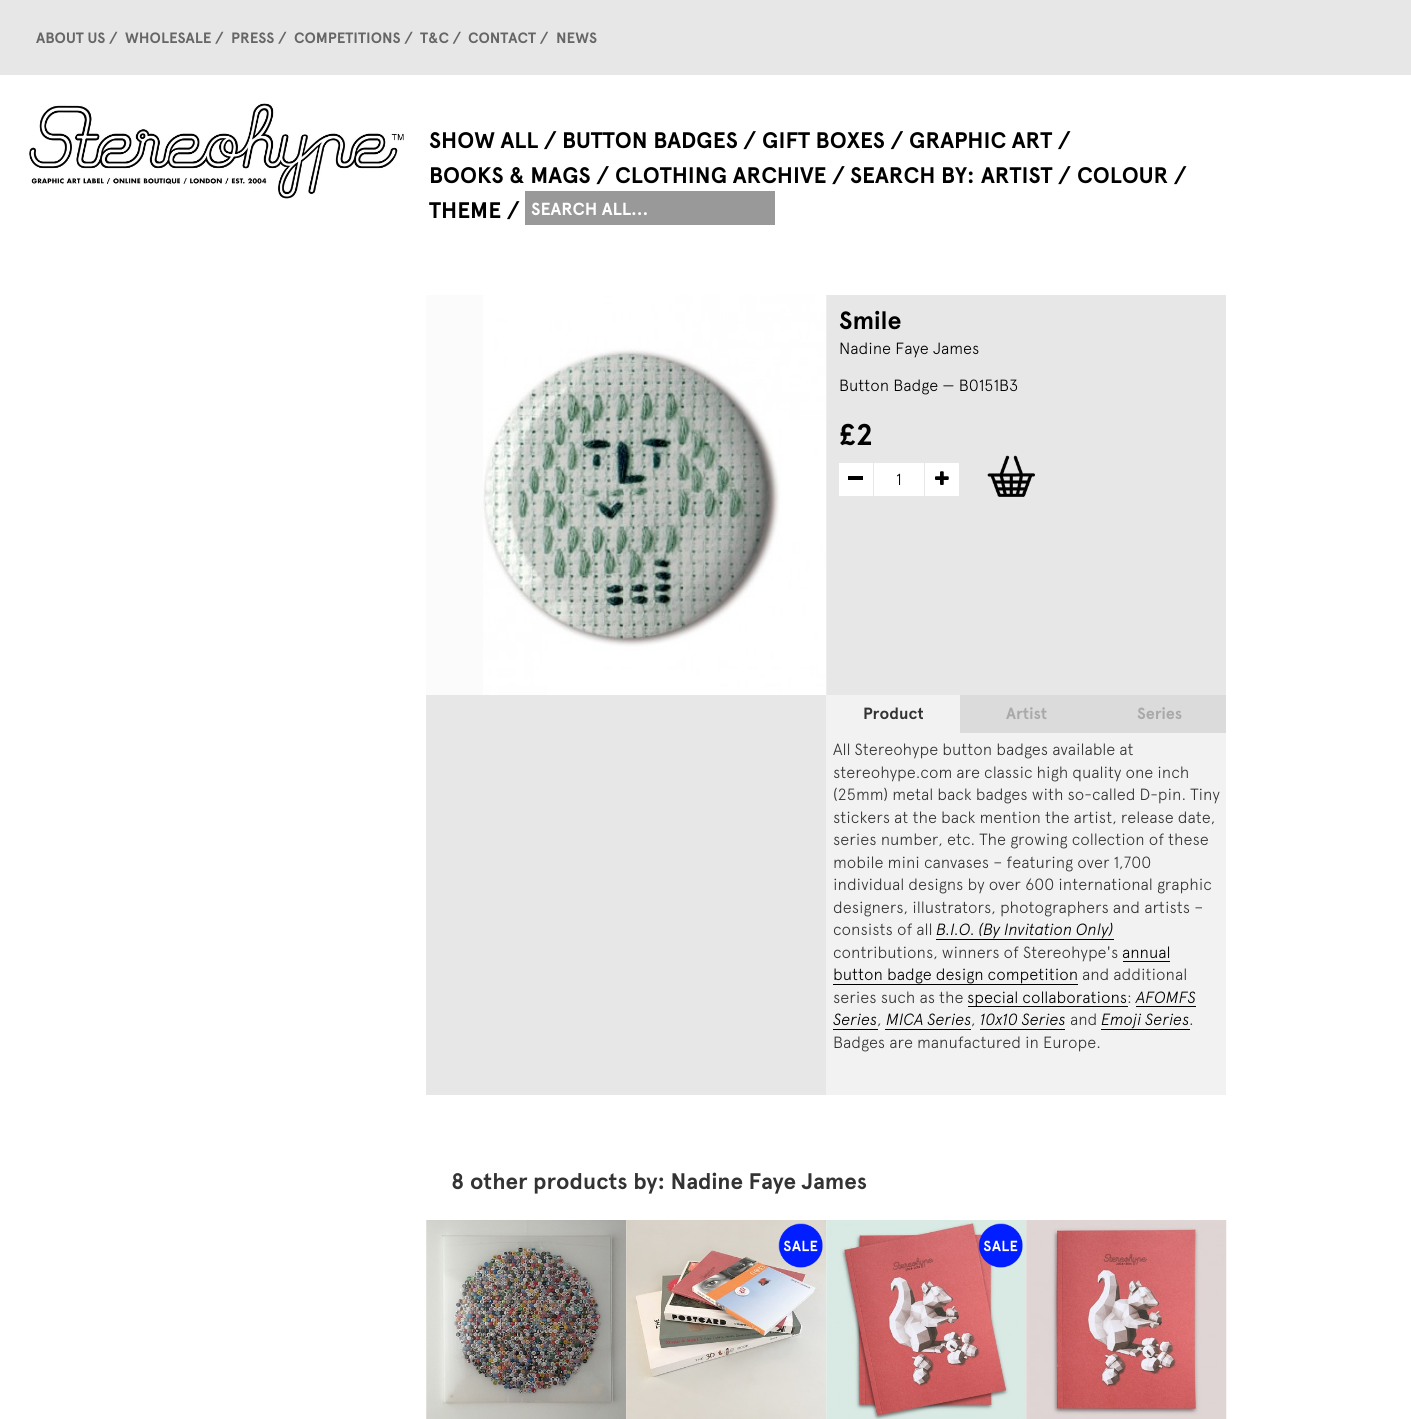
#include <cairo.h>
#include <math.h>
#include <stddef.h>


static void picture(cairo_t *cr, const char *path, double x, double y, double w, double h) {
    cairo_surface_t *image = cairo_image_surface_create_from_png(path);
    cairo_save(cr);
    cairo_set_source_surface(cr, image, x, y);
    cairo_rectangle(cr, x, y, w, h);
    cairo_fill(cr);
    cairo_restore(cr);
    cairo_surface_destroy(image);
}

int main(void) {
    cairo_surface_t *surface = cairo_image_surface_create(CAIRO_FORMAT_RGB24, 1411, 1419);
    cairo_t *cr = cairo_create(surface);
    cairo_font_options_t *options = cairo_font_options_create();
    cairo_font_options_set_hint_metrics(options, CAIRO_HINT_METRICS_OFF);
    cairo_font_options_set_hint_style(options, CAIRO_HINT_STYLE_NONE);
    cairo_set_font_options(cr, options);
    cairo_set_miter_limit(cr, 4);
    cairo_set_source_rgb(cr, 1, 1, 1);
    cairo_paint(cr);
    cairo_set_source_rgb(cr, 0.906, 0.906, 0.906);
    cairo_rectangle(cr, 0, 0, 1411, 75);
    cairo_fill(cr);
    cairo_select_font_face(cr, "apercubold", CAIRO_FONT_SLANT_NORMAL, CAIRO_FONT_WEIGHT_BOLD);
    cairo_set_font_size(cr, 15);
    cairo_set_source_rgb(cr, 0.4, 0.4, 0.4);
    cairo_move_to(cr, 36, 43);
    cairo_show_text(cr, "ABOUT US /");
    cairo_move_to(cr, 125, 43);
    cairo_show_text(cr, "WHOLESALE /");
    cairo_move_to(cr, 231, 43);
    cairo_show_text(cr, "PRESS /");
    cairo_move_to(cr, 294, 43);
    cairo_show_text(cr, "COMPETITIONS /");
    cairo_move_to(cr, 420, 43);
    cairo_show_text(cr, "T&C /");
    cairo_move_to(cr, 468, 43);
    cairo_show_text(cr, "CONTACT /");
    cairo_move_to(cr, 556, 43);
    cairo_show_text(cr, "NEWS");
    picture(cr, "img1.png", 29, 103, 375, 96);
    cairo_set_font_size(cr, 22.5);
    cairo_set_source_rgb(cr, 0, 0, 0);
    cairo_move_to(cr, 429, 148);
    cairo_show_text(cr, "SHOW ALL /");
    cairo_move_to(cr, 562, 148);
    cairo_show_text(cr, "BUTTON BADGES /");
    cairo_move_to(cr, 762, 148);
    cairo_show_text(cr, "GIFT BOXES /");
    cairo_move_to(cr, 909, 148);
    cairo_show_text(cr, "GRAPHIC ART /");
    cairo_move_to(cr, 429, 183);
    cairo_show_text(cr, "BOOKS & MAGS /");
    cairo_move_to(cr, 615, 183);
    cairo_show_text(cr, "CLOTHING ARCHIVE /");
    cairo_move_to(cr, 850, 183);
    cairo_show_text(cr, "SEARCH BY:");
    cairo_move_to(cr, 981, 183);
    cairo_show_text(cr, "ARTIST /");
    cairo_move_to(cr, 1077, 183);
    cairo_show_text(cr, "COLOUR /");
    cairo_move_to(cr, 429, 218);
    cairo_show_text(cr, "THEME /");
    cairo_set_source_rgb(cr, 0.6, 0.6, 0.6);
    cairo_rectangle(cr, 525, 191, 250, 34);
    cairo_fill(cr);
    cairo_set_font_size(cr, 17.5);
    cairo_set_source_rgb(cr, 1, 1, 1);
    cairo_move_to(cr, 531, 215);
    cairo_show_text(cr, "SEARCH ALL...");
    cairo_set_source_rgb(cr, 0.984, 0.984, 0.984);
    cairo_rectangle(cr, 426, 295, 57, 400);
    cairo_fill(cr);
    cairo_set_source_rgb(cr, 0.906, 0.906, 0.906);
    cairo_rectangle(cr, 826, 295, 400, 400);
    cairo_fill(cr);
    picture(cr, "img2.png", 483, 295, 344, 400);
    cairo_rectangle(cr, 426, 695, 400, 400);
    cairo_fill(cr);
    cairo_set_font_size(cr, 25);
    cairo_set_source_rgb(cr, 0, 0, 0);
    cairo_move_to(cr, 839, 329);
    cairo_show_text(cr, "Smile");
    cairo_select_font_face(cr, "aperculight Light", CAIRO_FONT_SLANT_NORMAL, CAIRO_FONT_WEIGHT_NORMAL);
    cairo_set_font_size(cr, 16.25);
    cairo_move_to(cr, 839, 354);
    cairo_show_text(cr, "Nadine Faye James");
    cairo_move_to(cr, 839, 391);
    cairo_show_text(cr, "Button Badge — B0151B3");
    cairo_select_font_face(cr, "apercubold", CAIRO_FONT_SLANT_NORMAL, CAIRO_FONT_WEIGHT_BOLD);
    cairo_set_font_size(cr, 30);
    cairo_move_to(cr, 839, 445);
    cairo_show_text(cr, "£2");
    cairo_set_source_rgb(cr, 1, 1, 1);
    cairo_rectangle(cr, 839, 463, 34, 33);
    cairo_fill(cr);
    cairo_set_source_rgb(cr, 0, 0, 0);
    cairo_rectangle(cr, 848, 476, 15, 4);
    cairo_fill(cr);
    cairo_set_source_rgb(cr, 1, 1, 1);
    cairo_rectangle(cr, 874, 463, 50, 33);
    cairo_fill(cr);
    cairo_select_font_face(cr, "aperculight Light", CAIRO_FONT_SLANT_NORMAL, CAIRO_FONT_WEIGHT_NORMAL);
    cairo_set_font_size(cr, 16.25);
    cairo_set_source_rgb(cr, 0, 0, 0);
    cairo_move_to(cr, 896, 485);
    cairo_show_text(cr, "1");
    cairo_set_source_rgb(cr, 1, 1, 1);
    cairo_rectangle(cr, 925, 463, 34, 33);
    cairo_fill(cr);
    picture(cr, "img3.png", 935, 471, 14, 14);
    picture(cr, "img4.png", 987, 455, 48, 42);
    cairo_set_source_rgb(cr, 0.949, 0.949, 0.949);
    cairo_rectangle(cr, 826, 695, 134, 38);
    cairo_fill(cr);
    cairo_select_font_face(cr, "apercubold", CAIRO_FONT_SLANT_NORMAL, CAIRO_FONT_WEIGHT_BOLD);
    cairo_set_source_rgb(cr, 0.2, 0.2, 0.2);
    cairo_move_to(cr, 863, 719);
    cairo_show_text(cr, "Product");
    cairo_set_source_rgb(cr, 0.859, 0.859, 0.859);
    cairo_rectangle(cr, 960, 695, 266, 38);
    cairo_fill(cr);
    cairo_set_source_rgb(cr, 0.663, 0.663, 0.663);
    cairo_move_to(cr, 1006, 719);
    cairo_show_text(cr, "Artist");
    cairo_move_to(cr, 1137, 719);
    cairo_show_text(cr, "Series");
    cairo_set_source_rgb(cr, 0.949, 0.949, 0.949);
    cairo_rectangle(cr, 826, 733, 400, 362);
    cairo_fill(cr);
    cairo_select_font_face(cr, "aperculight Light", CAIRO_FONT_SLANT_NORMAL, CAIRO_FONT_WEIGHT_NORMAL);
    cairo_set_source_rgb(cr, 0.2, 0.2, 0.2);
    cairo_move_to(cr, 833, 755);
    cairo_show_text(cr, "All Stereohype button badges available at");
    cairo_move_to(cr, 833, 778);
    cairo_show_text(cr, "stereohype.com are classic high quality one inch");
    cairo_move_to(cr, 833, 800);
    cairo_show_text(cr, "(25mm) metal back badges with so-called D-pin. Tiny");
    cairo_move_to(cr, 833, 823);
    cairo_show_text(cr, "stickers at the back mention the artist, release date,");
    cairo_move_to(cr, 833, 845);
    cairo_show_text(cr, "series number, etc. The growing collection of these");
    cairo_move_to(cr, 833, 868);
    cairo_show_text(cr, "mobile mini canvases – featuring over 1,700");
    cairo_move_to(cr, 833, 890);
    cairo_show_text(cr, "individual designs by over 600 international graphic");
    cairo_move_to(cr, 833, 913);
    cairo_show_text(cr, "designers, illustrators, photographers and artists –");
    cairo_move_to(cr, 833, 935);
    cairo_show_text(cr, "consists of all");
    cairo_select_font_face(cr, "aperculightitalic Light", CAIRO_FONT_SLANT_ITALIC, CAIRO_FONT_WEIGHT_NORMAL);
    cairo_set_source_rgb(cr, 0, 0, 0);
    cairo_move_to(cr, 936, 935);
    cairo_show_text(cr, "B.I.O. (By Invitation Only)");
    cairo_rectangle(cr, 936, 939, 178, 1);
    cairo_fill(cr);
    cairo_select_font_face(cr, "aperculight Light", CAIRO_FONT_SLANT_NORMAL, CAIRO_FONT_WEIGHT_NORMAL);
    cairo_set_source_rgb(cr, 0.2, 0.2, 0.2);
    cairo_move_to(cr, 833, 958);
    cairo_show_text(cr, "contributions, winners of Stereohype's");
    cairo_set_source_rgb(cr, 0, 0, 0);
    cairo_move_to(cr, 1122, 958);
    cairo_show_text(cr, "annual");
    cairo_rectangle(cr, 1123, 961, 47, 1);
    cairo_fill(cr);
    cairo_move_to(cr, 833, 980);
    cairo_show_text(cr, "button badge design competition");
    cairo_rectangle(cr, 833, 984, 245, 1);
    cairo_fill(cr);
    cairo_set_source_rgb(cr, 0.2, 0.2, 0.2);
    cairo_move_to(cr, 1082, 980);
    cairo_show_text(cr, "and additional");
    cairo_move_to(cr, 833, 1003);
    cairo_show_text(cr, "series such as the");
    cairo_set_source_rgb(cr, 0, 0, 0);
    cairo_rectangle(cr, 968, 1006, 160, 1);
    cairo_fill(cr);
    cairo_move_to(cr, 967, 1003);
    cairo_show_text(cr, "special collaborations");
    cairo_set_source_rgb(cr, 0.2, 0.2, 0.2);
    cairo_move_to(cr, 1127, 1003);
    cairo_show_text(cr, ":");
    cairo_select_font_face(cr, "aperculightitalic Light", CAIRO_FONT_SLANT_ITALIC, CAIRO_FONT_WEIGHT_NORMAL);
    cairo_set_source_rgb(cr, 0, 0, 0);
    cairo_move_to(cr, 1136, 1003);
    cairo_show_text(cr, "AFOMFS");
    cairo_rectangle(cr, 1136, 1006, 60, 1);
    cairo_fill(cr);
    cairo_move_to(cr, 833, 1025);
    cairo_show_text(cr, "Series");
    cairo_rectangle(cr, 833, 1029, 45, 1);
    cairo_fill(cr);
    cairo_select_font_face(cr, "aperculight Light", CAIRO_FONT_SLANT_NORMAL, CAIRO_FONT_WEIGHT_NORMAL);
    cairo_set_source_rgb(cr, 0.2, 0.2, 0.2);
    cairo_move_to(cr, 877, 1025);
    cairo_show_text(cr, ",");
    cairo_select_font_face(cr, "aperculightitalic Light", CAIRO_FONT_SLANT_ITALIC, CAIRO_FONT_WEIGHT_NORMAL);
    cairo_set_source_rgb(cr, 0, 0, 0);
    cairo_move_to(cr, 886, 1025);
    cairo_show_text(cr, "MICA Series");
    cairo_rectangle(cr, 885, 1029, 86, 1);
    cairo_fill(cr);
    cairo_select_font_face(cr, "aperculight Light", CAIRO_FONT_SLANT_NORMAL, CAIRO_FONT_WEIGHT_NORMAL);
    cairo_set_source_rgb(cr, 0.2, 0.2, 0.2);
    cairo_move_to(cr, 971, 1025);
    cairo_show_text(cr, ",");
    cairo_select_font_face(cr, "aperculightitalic Light", CAIRO_FONT_SLANT_ITALIC, CAIRO_FONT_WEIGHT_NORMAL);
    cairo_set_source_rgb(cr, 0, 0, 0);
    cairo_move_to(cr, 980, 1025);
    cairo_show_text(cr, "10x10 Series");
    cairo_rectangle(cr, 980, 1029, 85, 1);
    cairo_fill(cr);
    cairo_select_font_face(cr, "aperculight Light", CAIRO_FONT_SLANT_NORMAL, CAIRO_FONT_WEIGHT_NORMAL);
    cairo_set_source_rgb(cr, 0.2, 0.2, 0.2);
    cairo_move_to(cr, 1070, 1025);
    cairo_show_text(cr, "and");
    cairo_select_font_face(cr, "aperculightitalic Light", CAIRO_FONT_SLANT_ITALIC, CAIRO_FONT_WEIGHT_NORMAL);
    cairo_set_source_rgb(cr, 0, 0, 0);
    cairo_move_to(cr, 1101, 1025);
    cairo_show_text(cr, "Emoji Series");
    cairo_rectangle(cr, 1101, 1029, 89, 1);
    cairo_fill(cr);
    cairo_select_font_face(cr, "aperculight Light", CAIRO_FONT_SLANT_NORMAL, CAIRO_FONT_WEIGHT_NORMAL);
    cairo_set_source_rgb(cr, 0.2, 0.2, 0.2);
    cairo_move_to(cr, 1189, 1025);
    cairo_show_text(cr, ".");
    cairo_move_to(cr, 833, 1048);
    cairo_show_text(cr, "Badges are manufactured in Europe.");
    cairo_select_font_face(cr, "apercubold", CAIRO_FONT_SLANT_NORMAL, CAIRO_FONT_WEIGHT_BOLD);
    cairo_set_font_size(cr, 22.5);
    cairo_move_to(cr, 451, 1189);
    cairo_show_text(cr, "8 other products by: Nadine Faye James");
    picture(cr, "img5.png", 426, 1220, 201, 199);
    picture(cr, "img6.png", 626, 1220, 201, 199);
    picture(cr, "img7.png", 778, 1223, 45, 45);
    picture(cr, "img8.png", 826, 1220, 201, 199);
    picture(cr, "img9.png", 978, 1223, 45, 45);
    picture(cr, "img10.png", 1026, 1220, 201, 199);
    cairo_surface_write_to_png(surface, "page.png");
    cairo_font_options_destroy(options);
    cairo_destroy(cr);
    cairo_surface_destroy(surface);
    return 0;
}
